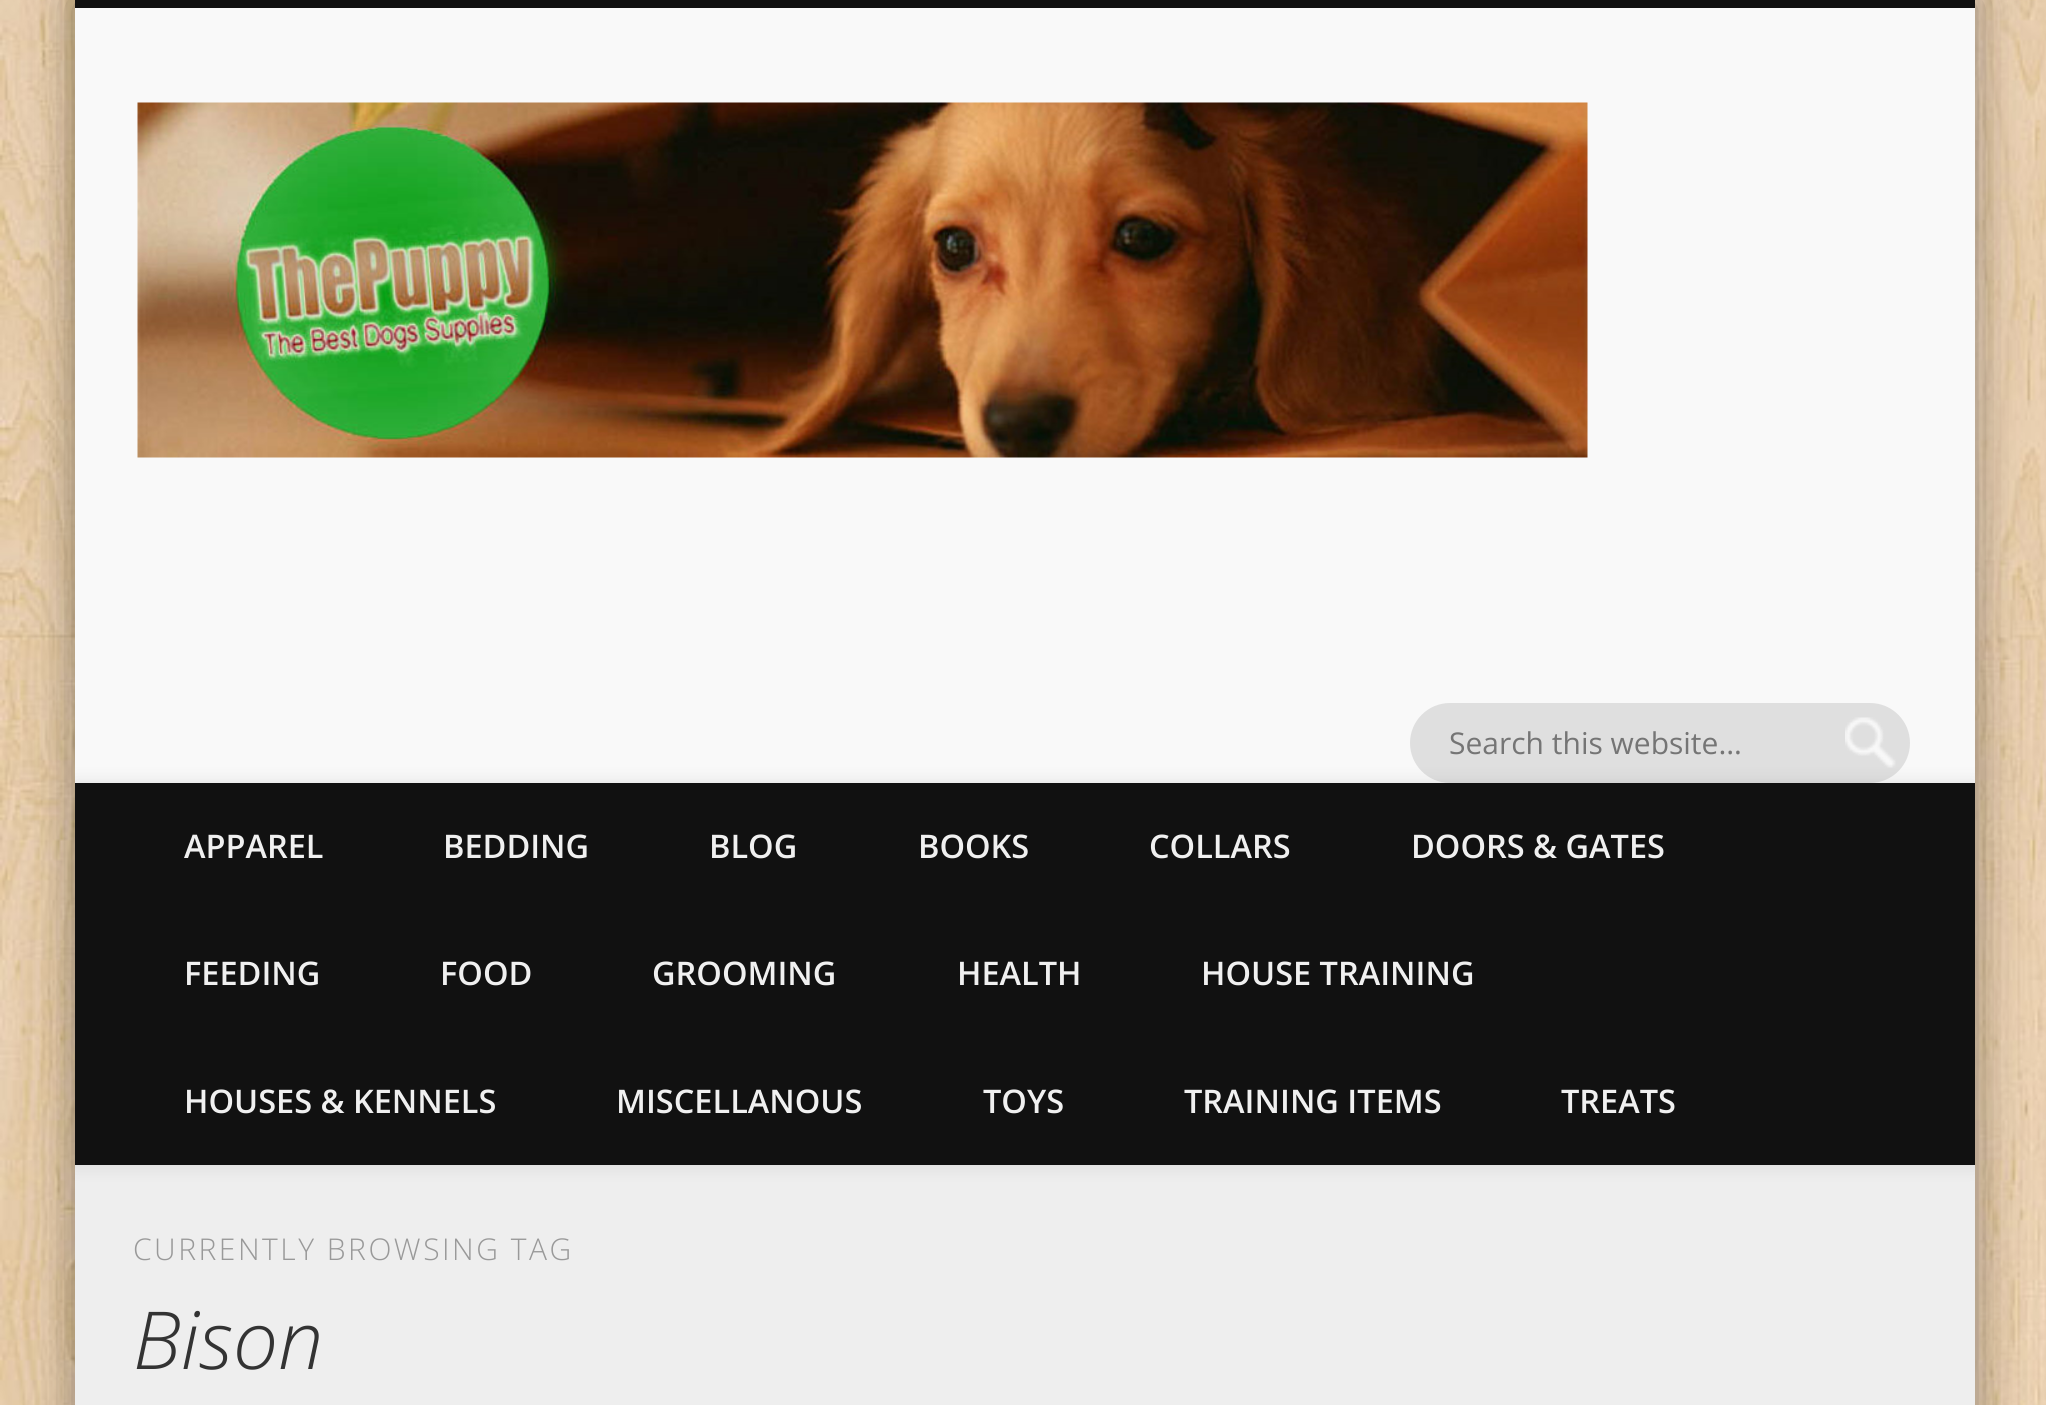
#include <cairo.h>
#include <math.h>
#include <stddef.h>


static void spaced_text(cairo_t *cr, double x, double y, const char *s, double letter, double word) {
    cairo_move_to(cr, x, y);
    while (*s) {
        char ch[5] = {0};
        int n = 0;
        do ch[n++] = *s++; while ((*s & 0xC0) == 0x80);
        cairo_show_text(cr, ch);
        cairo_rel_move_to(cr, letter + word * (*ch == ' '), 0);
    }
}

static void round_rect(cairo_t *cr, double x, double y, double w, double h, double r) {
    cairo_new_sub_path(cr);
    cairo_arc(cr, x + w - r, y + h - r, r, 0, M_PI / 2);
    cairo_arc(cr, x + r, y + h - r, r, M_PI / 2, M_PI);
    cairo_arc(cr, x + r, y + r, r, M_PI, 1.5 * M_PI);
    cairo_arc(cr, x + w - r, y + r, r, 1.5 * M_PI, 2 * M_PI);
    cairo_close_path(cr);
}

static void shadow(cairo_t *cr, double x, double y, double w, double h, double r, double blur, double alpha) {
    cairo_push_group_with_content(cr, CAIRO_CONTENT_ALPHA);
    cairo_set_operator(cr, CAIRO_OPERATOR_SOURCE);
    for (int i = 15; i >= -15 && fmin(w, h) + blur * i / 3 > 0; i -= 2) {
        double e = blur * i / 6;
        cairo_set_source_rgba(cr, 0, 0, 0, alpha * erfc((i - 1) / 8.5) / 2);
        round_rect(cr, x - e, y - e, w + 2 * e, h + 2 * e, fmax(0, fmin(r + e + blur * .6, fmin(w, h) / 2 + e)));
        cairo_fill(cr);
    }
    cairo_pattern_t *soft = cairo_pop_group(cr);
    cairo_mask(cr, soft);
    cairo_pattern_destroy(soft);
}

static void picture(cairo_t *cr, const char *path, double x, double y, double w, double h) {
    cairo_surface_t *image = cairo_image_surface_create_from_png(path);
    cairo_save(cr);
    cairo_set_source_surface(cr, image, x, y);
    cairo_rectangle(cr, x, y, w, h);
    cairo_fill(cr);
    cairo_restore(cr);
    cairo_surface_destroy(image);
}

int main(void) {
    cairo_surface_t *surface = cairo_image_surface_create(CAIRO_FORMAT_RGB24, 2046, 1405);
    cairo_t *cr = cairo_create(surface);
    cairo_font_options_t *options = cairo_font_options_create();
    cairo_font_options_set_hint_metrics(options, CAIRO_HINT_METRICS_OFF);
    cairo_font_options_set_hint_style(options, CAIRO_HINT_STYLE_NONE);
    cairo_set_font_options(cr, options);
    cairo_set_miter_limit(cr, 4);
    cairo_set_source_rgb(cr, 1, 1, 1);
    cairo_paint(cr);
    picture(cr, "img1.png", 0, 0, 2046, 1405);
    cairo_set_source_rgb(cr, 0, 0, 0);
    shadow(cr, 75, 0, 1900, 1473, 0, 22.5, 0.4);
    cairo_set_source_rgb(cr, 0.973, 0.973, 0.973);
    cairo_rectangle(cr, 75, 8, 1900, 775);
    cairo_fill(cr);
    cairo_set_source_rgb(cr, 0.067, 0.067, 0.067);
    cairo_rectangle(cr, 75, 0, 1900, 8);
    cairo_fill(cr);
    picture(cr, "img2.png", 137, 102, 1451, 356);
    cairo_set_source_rgb(cr, 0.875, 0.875, 0.875);
    round_rect(cr, 1410, 703, 500, 80, 40);
    cairo_fill(cr);
    picture(cr, "img3.png", 1845, 717, 51, 51);
    cairo_select_font_face(cr, "Open Sans", CAIRO_FONT_SLANT_NORMAL, CAIRO_FONT_WEIGHT_NORMAL);
    cairo_set_font_size(cr, 30);
    cairo_set_source_rgb(cr, 0.459, 0.459, 0.459);
    cairo_move_to(cr, 1449, 754);
    cairo_show_text(cr, "Search this website…");
    cairo_set_source_rgb(cr, 0.933, 0.933, 0.933);
    cairo_rectangle(cr, 75, 1165, 1900, 240);
    cairo_fill(cr);
    cairo_save(cr);
    cairo_rectangle(cr, 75, 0, 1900, 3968);
    cairo_clip(cr);
    cairo_set_source_rgb(cr, 0, 0, 0);
    shadow(cr, 75, 783, 1900, 382, 0, 9, 0.1);
    cairo_restore(cr);
    cairo_set_source_rgb(cr, 0.067, 0.067, 0.067);
    cairo_rectangle(cr, 75, 783, 1900, 382);
    cairo_fill(cr);
    cairo_select_font_face(cr, "Open Sans SemiBold", CAIRO_FONT_SLANT_NORMAL, CAIRO_FONT_WEIGHT_NORMAL);
    cairo_set_font_size(cr, 32.5);
    cairo_set_source_rgb(cr, 0.941, 0.941, 0.941);
    cairo_move_to(cr, 184, 858);
    cairo_show_text(cr, "APPAREL");
    cairo_move_to(cr, 443, 858);
    cairo_show_text(cr, "BEDDING");
    cairo_move_to(cr, 709, 858);
    cairo_show_text(cr, "BLOG");
    cairo_move_to(cr, 918, 858);
    cairo_show_text(cr, "BOOKS");
    cairo_move_to(cr, 1149, 858);
    cairo_show_text(cr, "COLLARS");
    cairo_move_to(cr, 1411, 858);
    cairo_show_text(cr, "DOORS & GATES");
    cairo_move_to(cr, 184, 985);
    cairo_show_text(cr, "FEEDING");
    cairo_move_to(cr, 440, 985);
    cairo_show_text(cr, "FOOD");
    cairo_move_to(cr, 652, 985);
    cairo_show_text(cr, "GROOMING");
    cairo_move_to(cr, 957, 985);
    cairo_show_text(cr, "HEALTH");
    cairo_move_to(cr, 1201, 985);
    cairo_show_text(cr, "HOUSE TRAINING");
    cairo_move_to(cr, 184, 1113);
    cairo_show_text(cr, "HOUSES & KENNELS");
    cairo_move_to(cr, 616, 1113);
    cairo_show_text(cr, "MISCELLANOUS");
    cairo_move_to(cr, 983, 1113);
    cairo_show_text(cr, "TOYS");
    cairo_move_to(cr, 1184, 1113);
    cairo_show_text(cr, "TRAINING ITEMS");
    cairo_move_to(cr, 1561, 1113);
    cairo_show_text(cr, "TREATS");
    cairo_select_font_face(cr, "Open Sans Light", CAIRO_FONT_SLANT_NORMAL, CAIRO_FONT_WEIGHT_NORMAL);
    cairo_set_font_size(cr, 30);
    cairo_set_source_rgb(cr, 0.6, 0.6, 0.6);
    spaced_text(cr, 133, 1260, "CURRENTLY BROWSING TAG", 2.5, 0);
    cairo_select_font_face(cr, "Open Sans Light", CAIRO_FONT_SLANT_ITALIC, CAIRO_FONT_WEIGHT_NORMAL);
    cairo_set_font_size(cr, 80);
    cairo_set_source_rgb(cr, 0.2, 0.2, 0.2);
    cairo_move_to(cr, 133, 1369);
    cairo_show_text(cr, "Bison");
    cairo_surface_write_to_png(surface, "page.png");
    cairo_font_options_destroy(options);
    cairo_destroy(cr);
    cairo_surface_destroy(surface);
    return 0;
}
